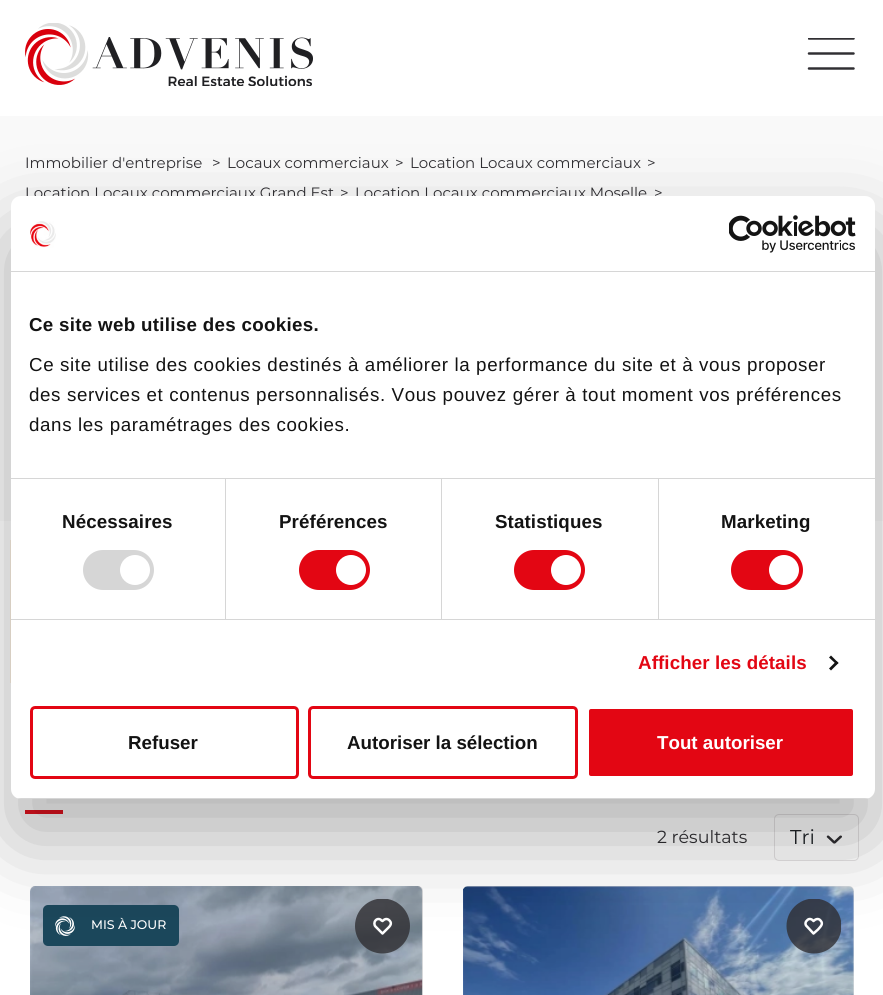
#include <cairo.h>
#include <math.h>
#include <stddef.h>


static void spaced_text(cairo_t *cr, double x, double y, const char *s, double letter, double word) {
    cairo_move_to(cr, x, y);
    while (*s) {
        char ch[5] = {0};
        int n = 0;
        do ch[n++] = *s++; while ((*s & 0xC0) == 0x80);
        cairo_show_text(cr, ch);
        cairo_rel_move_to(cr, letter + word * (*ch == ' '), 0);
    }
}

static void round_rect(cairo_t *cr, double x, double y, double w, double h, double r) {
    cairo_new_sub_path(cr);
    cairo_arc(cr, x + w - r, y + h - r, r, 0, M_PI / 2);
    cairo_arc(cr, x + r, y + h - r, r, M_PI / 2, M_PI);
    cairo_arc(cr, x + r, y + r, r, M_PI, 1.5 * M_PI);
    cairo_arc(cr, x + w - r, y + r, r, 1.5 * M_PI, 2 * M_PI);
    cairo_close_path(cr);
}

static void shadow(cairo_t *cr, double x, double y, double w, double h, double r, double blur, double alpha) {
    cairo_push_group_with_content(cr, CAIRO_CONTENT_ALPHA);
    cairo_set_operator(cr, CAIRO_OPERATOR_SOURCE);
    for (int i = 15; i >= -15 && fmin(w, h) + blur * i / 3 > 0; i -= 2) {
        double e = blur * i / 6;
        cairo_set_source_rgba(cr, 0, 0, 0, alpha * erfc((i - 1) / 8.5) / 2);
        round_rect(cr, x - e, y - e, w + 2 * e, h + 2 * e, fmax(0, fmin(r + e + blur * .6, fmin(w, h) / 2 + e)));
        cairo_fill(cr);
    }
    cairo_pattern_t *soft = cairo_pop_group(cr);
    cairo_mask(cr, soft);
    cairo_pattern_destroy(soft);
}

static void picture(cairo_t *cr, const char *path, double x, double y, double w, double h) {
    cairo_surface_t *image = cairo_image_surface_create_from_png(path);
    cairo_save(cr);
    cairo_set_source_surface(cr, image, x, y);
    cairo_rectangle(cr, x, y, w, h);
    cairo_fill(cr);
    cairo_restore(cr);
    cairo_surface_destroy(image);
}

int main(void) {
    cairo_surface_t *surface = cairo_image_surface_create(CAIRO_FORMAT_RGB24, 883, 995);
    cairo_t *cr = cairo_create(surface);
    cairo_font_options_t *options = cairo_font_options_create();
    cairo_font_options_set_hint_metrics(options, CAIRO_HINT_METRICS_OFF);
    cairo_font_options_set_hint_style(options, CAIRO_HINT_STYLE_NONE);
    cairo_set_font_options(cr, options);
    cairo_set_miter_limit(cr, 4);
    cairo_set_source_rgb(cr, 1, 1, 1);
    cairo_paint(cr);
    picture(cr, "img1.png", 25, 23, 288, 63);
    cairo_save(cr);
    cairo_rectangle(cr, 808, 38, 47, 32);
    cairo_clip(cr);
    cairo_new_path(cr);
    cairo_move_to(cr, 809, 38.5);
    cairo_line_to(cr, 853.5, 38.5);
    cairo_set_source_rgb(cr, 0.188, 0.184, 0.2);
    cairo_set_line_width(cr, 2.5);
    cairo_set_line_cap(cr, CAIRO_LINE_CAP_ROUND);
    cairo_stroke(cr);
    cairo_restore(cr);
    cairo_new_path(cr);
    cairo_move_to(cr, 809, 53.5);
    cairo_line_to(cr, 853.5, 53.5);
    cairo_move_to(cr, 809, 68.5);
    cairo_line_to(cr, 853.5, 68.5);
    cairo_set_source_rgb(cr, 0.188, 0.184, 0.2);
    cairo_set_line_width(cr, 2.5);
    cairo_set_line_cap(cr, CAIRO_LINE_CAP_ROUND);
    cairo_stroke(cr);
    cairo_set_source_rgb(cr, 0.973, 0.973, 0.973);
    cairo_rectangle(cr, 0, 116, 883, 405);
    cairo_fill(cr);
    cairo_select_font_face(cr, "Montserrat", CAIRO_FONT_SLANT_NORMAL, CAIRO_FONT_WEIGHT_NORMAL);
    cairo_set_font_size(cr, 15);
    cairo_set_source_rgb(cr, 0.188, 0.184, 0.2);
    cairo_move_to(cr, 25, 168);
    cairo_show_text(cr, "Immobilier d'entreprise");
    cairo_move_to(cr, 212, 168);
    cairo_show_text(cr, ">");
    cairo_move_to(cr, 227, 168);
    cairo_show_text(cr, "Locaux commerciaux");
    cairo_move_to(cr, 395, 168);
    cairo_show_text(cr, ">");
    cairo_move_to(cr, 410, 168);
    cairo_show_text(cr, "Location Locaux commerciaux");
    cairo_move_to(cr, 647, 168);
    cairo_show_text(cr, ">");
    cairo_move_to(cr, 25, 198);
    cairo_show_text(cr, "Location Locaux commerciaux Grand Est");
    cairo_move_to(cr, 340, 198);
    cairo_show_text(cr, ">");
    cairo_move_to(cr, 355, 198);
    cairo_show_text(cr, "Location Locaux commerciaux Moselle");
    cairo_move_to(cr, 654, 198);
    cairo_show_text(cr, ">");
    cairo_set_source_rgb(cr, 0.992, 0.949, 0.894);
    cairo_rectangle(cr, 10, 540, 1, 143);
    cairo_fill(cr);
    cairo_set_source_rgb(cr, 0.894, 0.071, 0.122);
    cairo_rectangle(cr, 25, 810, 38, 4);
    cairo_fill(cr);
    cairo_set_font_size(cr, 17.5);
    cairo_set_source_rgb(cr, 0.188, 0.184, 0.2);
    cairo_move_to(cr, 657, 843);
    cairo_show_text(cr, "2 résultats");
    round_rect(cr, 774.5, 814.5, 84, 46, 4.5);
    cairo_set_source_rgb(cr, 0.894, 0.886, 0.89);
    cairo_set_line_width(cr, 1);
    cairo_set_line_cap(cr, CAIRO_LINE_CAP_BUTT);
    cairo_stroke(cr);
    cairo_set_font_size(cr, 20);
    cairo_set_source_rgb(cr, 0.129, 0.145, 0.161);
    cairo_move_to(cr, 790, 844);
    cairo_show_text(cr, "Tri");
    picture(cr, "img2.png", 826, 835, 16, 9);
    picture(cr, "img3.png", 30, 886, 393, 109);
    cairo_set_source_rgba(cr, 0.125, 0.125, 0.137, 0.15);
    round_rect(cr, 30, 886, 393, 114, 5);
    cairo_fill(cr);
    cairo_set_source_rgb(cr, 0.106, 0.278, 0.357);
    round_rect(cr, 43, 905, 136, 41, 5);
    cairo_fill(cr);
    picture(cr, "img4.png", 55, 916, 20, 20);
    cairo_select_font_face(cr, "Montserrat Medium", CAIRO_FONT_SLANT_NORMAL, CAIRO_FONT_WEIGHT_NORMAL);
    cairo_set_font_size(cr, 12.5);
    cairo_set_source_rgb(cr, 1, 1, 1);
    cairo_move_to(cr, 91, 929);
    cairo_show_text(cr, "MIS À JOUR");
    cairo_save(cr);
    cairo_rectangle(cr, 355, 899, 55, 55);
    cairo_clip(cr);
    cairo_set_source_rgba(cr, 0.188, 0.184, 0.2, 0.8);
    cairo_arc(cr, 382.5, 926, 27.5, 0, 2 * M_PI);
    cairo_fill(cr);
    cairo_restore(cr);
    cairo_new_path(cr);
    cairo_move_to(cr, 389.5, 920.5);
    cairo_curve_to(cr, 387, 918, 384.5, 919, 382.5, 921);
    cairo_line_to(cr, 381.5, 920.5);
    cairo_curve_to(cr, 380, 918.5, 377, 918.5, 375.5, 920.5);
    cairo_curve_to(cr, 374, 922, 374, 925, 375.5, 926.5);
    cairo_line_to(cr, 382.5, 933.5);
    cairo_line_to(cr, 386.5, 929.5);
    cairo_curve_to(cr, 389, 927, 393, 924, 389.5, 920.5);
    cairo_close_path(cr);
    cairo_set_line_width(cr, 2.5);
    cairo_set_line_cap(cr, CAIRO_LINE_CAP_ROUND);
    cairo_set_line_join(cr, CAIRO_LINE_JOIN_ROUND);
    cairo_stroke(cr);
    picture(cr, "img5.png", 463, 886, 391, 109);
    cairo_set_source_rgba(cr, 0.125, 0.125, 0.137, 0.15);
    round_rect(cr, 463, 886, 391, 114, 5);
    cairo_fill(cr);
    cairo_save(cr);
    cairo_rectangle(cr, 786, 899, 55, 55);
    cairo_clip(cr);
    cairo_set_source_rgba(cr, 0.188, 0.184, 0.2, 0.8);
    cairo_arc(cr, 814, 926, 27.5, 0, 2 * M_PI);
    cairo_fill(cr);
    cairo_restore(cr);
    cairo_new_path(cr);
    cairo_move_to(cr, 820.5, 920.5);
    cairo_curve_to(cr, 818.5, 918, 815.5, 919, 813.5, 921);
    cairo_line_to(cr, 813, 920.5);
    cairo_curve_to(cr, 811, 918.5, 808.5, 918.5, 807, 920.5);
    cairo_curve_to(cr, 805, 922, 805, 925, 807, 926.5);
    cairo_line_to(cr, 813.5, 933.5);
    cairo_line_to(cr, 818, 929.5);
    cairo_curve_to(cr, 820, 927, 824, 924, 820.5, 920.5);
    cairo_close_path(cr);
    cairo_set_source_rgb(cr, 1, 1, 1);
    cairo_stroke(cr);
    cairo_set_source_rgb(cr, 0, 0, 0);
    shadow(cr, 11, 236, 864, 603, 10, 42.5, 0.3);
    cairo_set_source_rgb(cr, 1, 1, 1);
    round_rect(cr, 11, 196, 864, 603, 10);
    cairo_fill(cr);
    cairo_set_source_rgb(cr, 0.839, 0.839, 0.839);
    cairo_rectangle(cr, 11, 271, 864, 1);
    cairo_fill(cr);
    picture(cr, "img6.png", 30, 221, 26, 27);
    picture(cr, "img7.png", 729, 215, 127, 38);
    cairo_rectangle(cr, 11, 478, 864, 1);
    cairo_fill(cr);
    cairo_select_font_face(cr, "Liberation Sans", CAIRO_FONT_SLANT_NORMAL, CAIRO_FONT_WEIGHT_BOLD);
    cairo_set_font_size(cr, 18.75);
    cairo_set_source_rgb(cr, 0.078, 0.078, 0.078);
    spaced_text(cr, 29, 331, "Ce site web utilise des cookies.", 0.3, 0);
    cairo_select_font_face(cr, "Liberation Sans", CAIRO_FONT_SLANT_NORMAL, CAIRO_FONT_WEIGHT_NORMAL);
    spaced_text(cr, 29, 371, "Ce site utilise des cookies destinés à améliorer la performance du site et à vous proposer", 0.62, 0);
    spaced_text(cr, 29, 401, "des services et contenus personnalisés. Vous pouvez gérer à tout moment vos préférences", 0.62, 0);
    spaced_text(cr, 29, 431, "dans les paramétrages des cookies.", 0.62, 0);
    cairo_set_source_rgb(cr, 0.839, 0.839, 0.839);
    cairo_rectangle(cr, 11, 619, 864, 1);
    cairo_fill(cr);
    cairo_rectangle(cr, 225, 479, 1, 140);
    cairo_fill(cr);
    cairo_select_font_face(cr, "Liberation Sans", CAIRO_FONT_SLANT_NORMAL, CAIRO_FONT_WEIGHT_BOLD);
    cairo_set_source_rgb(cr, 0.078, 0.078, 0.078);
    spaced_text(cr, 62, 528, "Nécessaires", 0.1, 0);
    cairo_set_source_rgb(cr, 0.839, 0.839, 0.839);
    round_rect(cr, 83, 550, 71, 40, 20);
    cairo_fill(cr);
    cairo_set_source_rgb(cr, 1, 1, 1);
    cairo_arc(cr, 135, 570, 15, 0, 2 * M_PI);
    cairo_fill(cr);
    cairo_set_source_rgb(cr, 0.839, 0.839, 0.839);
    cairo_rectangle(cr, 441, 479, 1, 140);
    cairo_fill(cr);
    cairo_set_source_rgb(cr, 0.078, 0.078, 0.078);
    spaced_text(cr, 279, 528, "Préférences", 0.1, 0);
    cairo_set_source_rgb(cr, 0.89, 0.024, 0.075);
    round_rect(cr, 299, 550, 71, 40, 20);
    cairo_fill(cr);
    cairo_set_source_rgb(cr, 1, 1, 1);
    cairo_arc(cr, 351, 570, 15, 0, 2 * M_PI);
    cairo_fill(cr);
    cairo_set_source_rgb(cr, 0.839, 0.839, 0.839);
    cairo_rectangle(cr, 658, 479, 1, 140);
    cairo_fill(cr);
    cairo_set_source_rgb(cr, 0.078, 0.078, 0.078);
    spaced_text(cr, 495, 528, "Statistiques", 0.1, 0);
    cairo_set_source_rgb(cr, 0.89, 0.024, 0.075);
    round_rect(cr, 514, 550, 71, 40, 20);
    cairo_fill(cr);
    cairo_set_source_rgb(cr, 1, 1, 1);
    cairo_arc(cr, 566, 570, 15, 0, 2 * M_PI);
    cairo_fill(cr);
    cairo_set_source_rgb(cr, 0.078, 0.078, 0.078);
    spaced_text(cr, 721, 528, "Marketing", 0.1, 0);
    cairo_set_source_rgb(cr, 0.89, 0.024, 0.075);
    round_rect(cr, 731, 550, 72, 40, 20);
    cairo_fill(cr);
    cairo_set_source_rgb(cr, 1, 1, 1);
    cairo_arc(cr, 784, 570, 15, 0, 2 * M_PI);
    cairo_fill(cr);
    cairo_set_source_rgb(cr, 0.89, 0.024, 0.075);
    spaced_text(cr, 638, 669, "Afficher les détails", 0.1, 0);
    cairo_set_source_rgb(cr, 0.078, 0.078, 0.078);
    cairo_new_path(cr);
    cairo_move_to(cr, 831, 655.5);
    cairo_line_to(cr, 838.5, 663);
    cairo_line_to(cr, 836.5, 664.5);
    cairo_line_to(cr, 829, 657.5);
    cairo_close_path(cr);
    cairo_fill(cr);
    cairo_new_path(cr);
    cairo_move_to(cr, 836.5, 661);
    cairo_line_to(cr, 838.5, 663);
    cairo_line_to(cr, 831, 670.5);
    cairo_line_to(cr, 829, 668.5);
    cairo_close_path(cr);
    cairo_fill(cr);
    cairo_save(cr);
    round_rect(cr, 11, 196, 864, 603, 10);
    cairo_clip(cr);
    cairo_set_source_rgb(cr, 0.839, 0.839, 0.839);
    cairo_rectangle(cr, 11, 798, 864, 1);
    cairo_fill(cr);
    cairo_restore(cr);
    round_rect(cr, 31.5, 707.5, 266, 70, 3.5);
    cairo_set_source_rgb(cr, 0.89, 0.024, 0.075);
    cairo_set_line_width(cr, 3);
    cairo_set_line_cap(cr, CAIRO_LINE_CAP_BUTT);
    cairo_set_line_join(cr, CAIRO_LINE_JOIN_MITER);
    cairo_stroke(cr);
    cairo_set_source_rgb(cr, 0.078, 0.078, 0.078);
    cairo_move_to(cr, 128, 749);
    cairo_show_text(cr, "Refuser");
    round_rect(cr, 309.5, 707.5, 267, 70, 3.5);
    cairo_set_source_rgb(cr, 0.89, 0.024, 0.075);
    cairo_stroke(cr);
    cairo_set_source_rgb(cr, 0.078, 0.078, 0.078);
    cairo_move_to(cr, 347, 749);
    cairo_show_text(cr, "Autoriser la sélection");
    cairo_set_source_rgb(cr, 0.89, 0.024, 0.075);
    round_rect(cr, 587.5, 707.5, 267, 70, 3.5);
    cairo_fill_preserve(cr);
    cairo_set_source_rgb(cr, 1, 1, 1);
    cairo_stroke(cr);
    cairo_move_to(cr, 657, 749);
    cairo_show_text(cr, "Tout autoriser");
    cairo_surface_write_to_png(surface, "page.png");
    cairo_font_options_destroy(options);
    cairo_destroy(cr);
    cairo_surface_destroy(surface);
    return 0;
}
